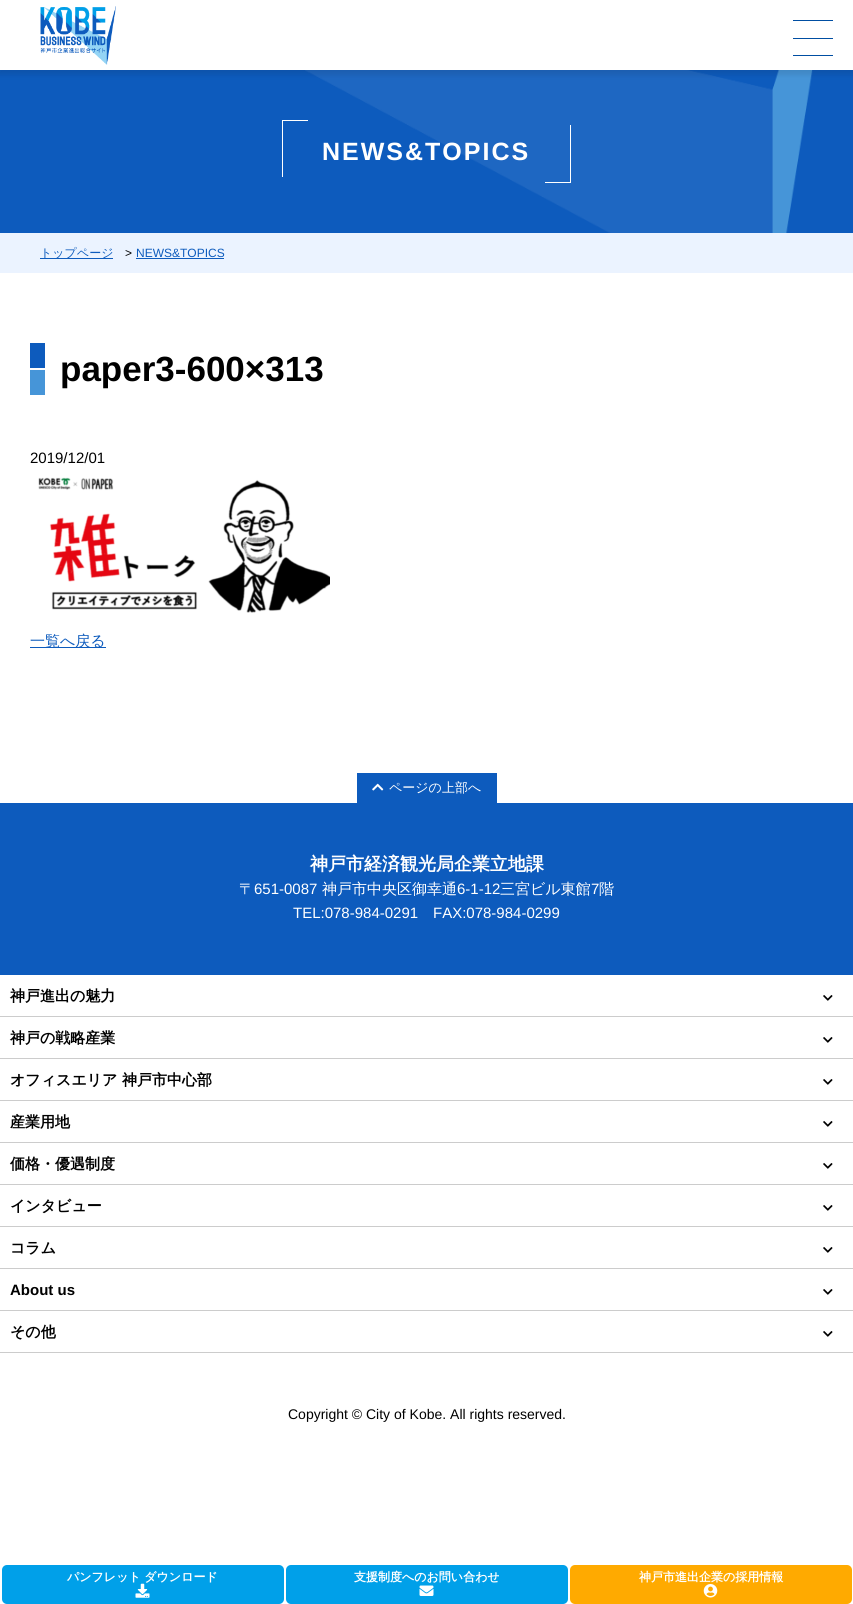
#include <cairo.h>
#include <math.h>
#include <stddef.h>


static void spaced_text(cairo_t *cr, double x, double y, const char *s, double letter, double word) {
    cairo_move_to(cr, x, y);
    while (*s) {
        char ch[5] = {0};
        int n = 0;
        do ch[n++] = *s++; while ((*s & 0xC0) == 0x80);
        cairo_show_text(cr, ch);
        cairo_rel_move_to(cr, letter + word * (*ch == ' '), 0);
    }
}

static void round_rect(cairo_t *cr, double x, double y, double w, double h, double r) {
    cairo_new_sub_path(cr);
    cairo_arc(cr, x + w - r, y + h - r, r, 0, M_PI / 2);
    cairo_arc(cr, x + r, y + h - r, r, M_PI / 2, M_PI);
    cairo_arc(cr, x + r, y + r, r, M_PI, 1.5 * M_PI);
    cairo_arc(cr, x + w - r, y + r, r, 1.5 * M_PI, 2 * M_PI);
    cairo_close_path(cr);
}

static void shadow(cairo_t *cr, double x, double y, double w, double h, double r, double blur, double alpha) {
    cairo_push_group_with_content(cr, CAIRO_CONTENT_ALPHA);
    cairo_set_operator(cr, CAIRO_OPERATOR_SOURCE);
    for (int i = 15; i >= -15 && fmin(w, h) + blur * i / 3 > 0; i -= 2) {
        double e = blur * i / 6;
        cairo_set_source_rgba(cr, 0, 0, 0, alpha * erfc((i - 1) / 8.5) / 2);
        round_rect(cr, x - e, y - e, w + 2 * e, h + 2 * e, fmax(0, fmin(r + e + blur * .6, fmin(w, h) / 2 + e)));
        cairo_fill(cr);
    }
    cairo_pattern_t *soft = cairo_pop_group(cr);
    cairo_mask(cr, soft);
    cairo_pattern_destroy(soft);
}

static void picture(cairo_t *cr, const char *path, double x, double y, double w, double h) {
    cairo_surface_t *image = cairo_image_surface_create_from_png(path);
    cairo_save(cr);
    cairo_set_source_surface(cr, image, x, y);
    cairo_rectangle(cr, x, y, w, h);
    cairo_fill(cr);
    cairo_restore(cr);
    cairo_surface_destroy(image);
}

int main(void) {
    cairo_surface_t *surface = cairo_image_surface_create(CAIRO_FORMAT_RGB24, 853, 1604);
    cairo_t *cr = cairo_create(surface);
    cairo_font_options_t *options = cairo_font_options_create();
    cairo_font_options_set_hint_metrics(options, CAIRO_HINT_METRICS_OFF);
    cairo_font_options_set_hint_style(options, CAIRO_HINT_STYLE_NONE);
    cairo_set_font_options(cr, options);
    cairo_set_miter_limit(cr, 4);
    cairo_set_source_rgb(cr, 1, 1, 1);
    cairo_paint(cr);
    cairo_set_source_rgb(cr, 0.051, 0.357, 0.741);
    cairo_rectangle(cr, 0, 70, 853, 163);
    cairo_fill(cr);
    picture(cr, "img2.png", 305, 70, 508, 163);
    cairo_set_source_rgb(cr, 0.039, 0.039, 0.039);
    shadow(cr, -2, 1, 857, 74, 0, 2.5, 0.1);
    cairo_set_source_rgb(cr, 1, 1, 1);
    cairo_rectangle(cr, 0, 0, 853, 70);
    cairo_fill(cr);
    cairo_set_source_rgb(cr, 0, 0.306, 0.635);
    cairo_rectangle(cr, 793, 20, 40, 1);
    cairo_fill(cr);
    cairo_rectangle(cr, 793, 38, 40, 1);
    cairo_fill(cr);
    cairo_rectangle(cr, 793, 55, 40, 1);
    cairo_fill(cr);
    picture(cr, "img1.png", 40, 6, 76, 59);
    cairo_set_source_rgb(cr, 1, 1, 1);
    cairo_rectangle(cr, 282, 120, 26, 1);
    cairo_fill(cr);
    cairo_rectangle(cr, 282, 120, 1, 57);
    cairo_fill(cr);
    cairo_select_font_face(cr, "Liberation Sans", CAIRO_FONT_SLANT_NORMAL, CAIRO_FONT_WEIGHT_BOLD);
    cairo_set_font_size(cr, 25);
    spaced_text(cr, 322, 160, "NEWS&TOPICS", 2, 0);
    cairo_rectangle(cr, 570, 125, 1, 58);
    cairo_fill(cr);
    cairo_rectangle(cr, 545, 182, 26, 1);
    cairo_fill(cr);
    cairo_set_source_rgb(cr, 0.918, 0.953, 1);
    cairo_rectangle(cr, 0, 233, 853, 40);
    cairo_fill(cr);
    cairo_set_source_rgb(cr, 0.051, 0.357, 0.741);
    cairo_rectangle(cr, 40, 258, 73, 1);
    cairo_fill(cr);
    cairo_select_font_face(cr, "WenQuanYi Zen Hei Medium", CAIRO_FONT_SLANT_NORMAL, CAIRO_FONT_WEIGHT_NORMAL);
    cairo_set_font_size(cr, 12);
    cairo_move_to(cr, 40, 257);
    cairo_show_text(cr, "トップページ");
    cairo_select_font_face(cr, "Liberation Sans", CAIRO_FONT_SLANT_NORMAL, CAIRO_FONT_WEIGHT_NORMAL);
    cairo_set_source_rgb(cr, 0, 0, 0);
    cairo_move_to(cr, 125, 257);
    cairo_show_text(cr, ">");
    cairo_set_source_rgb(cr, 0.051, 0.357, 0.741);
    cairo_move_to(cr, 136, 257);
    cairo_show_text(cr, "NEWS&TOPICS");
    cairo_rectangle(cr, 136, 258, 88, 1);
    cairo_fill(cr);
    cairo_rectangle(cr, 30, 343, 15, 25);
    cairo_fill(cr);
    cairo_select_font_face(cr, "Liberation Sans", CAIRO_FONT_SLANT_NORMAL, CAIRO_FONT_WEIGHT_BOLD);
    cairo_set_font_size(cr, 35);
    cairo_set_source_rgb(cr, 0, 0, 0);
    cairo_move_to(cr, 60, 381);
    cairo_show_text(cr, "paper3-600×313");
    cairo_set_source_rgb(cr, 0.275, 0.584, 0.847);
    cairo_rectangle(cr, 30, 370, 15, 25);
    cairo_fill(cr);
    cairo_select_font_face(cr, "Liberation Sans", CAIRO_FONT_SLANT_NORMAL, CAIRO_FONT_WEIGHT_NORMAL);
    cairo_set_font_size(cr, 15);
    cairo_set_source_rgb(cr, 0, 0, 0);
    cairo_move_to(cr, 30, 463);
    cairo_show_text(cr, "2019/12/01");
    picture(cr, "img3.png", 38, 477, 292, 136);
    cairo_set_source_rgb(cr, 0.051, 0.357, 0.741);
    cairo_rectangle(cr, 30, 647, 76, 1);
    cairo_fill(cr);
    cairo_select_font_face(cr, "WenQuanYi Zen Hei Medium", CAIRO_FONT_SLANT_NORMAL, CAIRO_FONT_WEIGHT_NORMAL);
    cairo_move_to(cr, 30, 646);
    cairo_show_text(cr, "一覧へ戻る");
    cairo_rectangle(cr, 0, 803, 853, 172);
    cairo_fill(cr);
    cairo_rectangle(cr, 357, 773, 140, 30);
    cairo_fill(cr);
    picture(cr, "img4.png", 372, 783, 12, 8);
    cairo_set_font_size(cr, 13);
    cairo_set_source_rgb(cr, 1, 1, 1);
    cairo_move_to(cr, 389, 792);
    cairo_show_text(cr, "ページの上部へ");
    cairo_select_font_face(cr, "WenQuanYi Zen Hei", CAIRO_FONT_SLANT_NORMAL, CAIRO_FONT_WEIGHT_BOLD);
    cairo_set_font_size(cr, 18);
    cairo_move_to(cr, 310, 870);
    cairo_show_text(cr, "神戸市経済観光局企業立地課");
    cairo_select_font_face(cr, "WenQuanYi Zen Hei Medium", CAIRO_FONT_SLANT_NORMAL, CAIRO_FONT_WEIGHT_NORMAL);
    cairo_set_font_size(cr, 15);
    cairo_move_to(cr, 239, 894);
    cairo_show_text(cr, "〒");
    cairo_select_font_face(cr, "Liberation Sans", CAIRO_FONT_SLANT_NORMAL, CAIRO_FONT_WEIGHT_NORMAL);
    cairo_move_to(cr, 254, 894);
    cairo_show_text(cr, "651-0087");
    cairo_select_font_face(cr, "WenQuanYi Zen Hei Medium", CAIRO_FONT_SLANT_NORMAL, CAIRO_FONT_WEIGHT_NORMAL);
    cairo_move_to(cr, 322, 894);
    cairo_show_text(cr, "神戸市中央区御幸通");
    cairo_select_font_face(cr, "Liberation Sans", CAIRO_FONT_SLANT_NORMAL, CAIRO_FONT_WEIGHT_NORMAL);
    cairo_move_to(cr, 457, 894);
    cairo_show_text(cr, "6-1-12");
    cairo_select_font_face(cr, "WenQuanYi Zen Hei Medium", CAIRO_FONT_SLANT_NORMAL, CAIRO_FONT_WEIGHT_NORMAL);
    cairo_move_to(cr, 500, 894);
    cairo_show_text(cr, "三宮ビル東館");
    cairo_select_font_face(cr, "Liberation Sans", CAIRO_FONT_SLANT_NORMAL, CAIRO_FONT_WEIGHT_NORMAL);
    cairo_move_to(cr, 591, 894);
    cairo_show_text(cr, "7");
    cairo_select_font_face(cr, "WenQuanYi Zen Hei Medium", CAIRO_FONT_SLANT_NORMAL, CAIRO_FONT_WEIGHT_NORMAL);
    cairo_move_to(cr, 599, 894);
    cairo_show_text(cr, "階");
    cairo_select_font_face(cr, "Liberation Sans", CAIRO_FONT_SLANT_NORMAL, CAIRO_FONT_WEIGHT_NORMAL);
    cairo_move_to(cr, 293, 918);
    cairo_show_text(cr, "TEL:078-984-0291");
    cairo_move_to(cr, 433, 918);
    cairo_show_text(cr, "FAX:078-984-0299");
    cairo_set_source_rgb(cr, 0.8, 0.8, 0.8);
    cairo_rectangle(cr, 0, 1016, 853, 1);
    cairo_fill(cr);
    cairo_select_font_face(cr, "WenQuanYi Zen Hei", CAIRO_FONT_SLANT_NORMAL, CAIRO_FONT_WEIGHT_BOLD);
    cairo_set_source_rgb(cr, 0, 0, 0);
    cairo_move_to(cr, 10, 1001);
    cairo_show_text(cr, "神戸進出の魅力");
    picture(cr, "img5.png", 823, 995, 10, 6);
    cairo_set_source_rgb(cr, 0.8, 0.8, 0.8);
    cairo_rectangle(cr, 0, 1058, 853, 1);
    cairo_fill(cr);
    cairo_set_source_rgb(cr, 0, 0, 0);
    cairo_move_to(cr, 10, 1043);
    cairo_show_text(cr, "神戸の戦略産業");
    picture(cr, "img5.png", 823, 1037, 10, 6);
    cairo_set_source_rgb(cr, 0.8, 0.8, 0.8);
    cairo_rectangle(cr, 0, 1100, 853, 1);
    cairo_fill(cr);
    cairo_set_source_rgb(cr, 0, 0, 0);
    cairo_move_to(cr, 10, 1085);
    cairo_show_text(cr, "オフィスエリア 神戸市中心部");
    picture(cr, "img5.png", 823, 1079, 10, 6);
    cairo_set_source_rgb(cr, 0.8, 0.8, 0.8);
    cairo_rectangle(cr, 0, 1142, 853, 1);
    cairo_fill(cr);
    cairo_set_source_rgb(cr, 0, 0, 0);
    cairo_move_to(cr, 10, 1127);
    cairo_show_text(cr, "産業用地");
    picture(cr, "img5.png", 823, 1121, 10, 6);
    cairo_set_source_rgb(cr, 0.8, 0.8, 0.8);
    cairo_rectangle(cr, 0, 1184, 853, 1);
    cairo_fill(cr);
    cairo_set_source_rgb(cr, 0, 0, 0);
    cairo_move_to(cr, 10, 1169);
    cairo_show_text(cr, "価格・優遇制度");
    picture(cr, "img5.png", 823, 1163, 10, 6);
    cairo_set_source_rgb(cr, 0.8, 0.8, 0.8);
    cairo_rectangle(cr, 0, 1226, 853, 1);
    cairo_fill(cr);
    cairo_set_source_rgb(cr, 0, 0, 0);
    cairo_move_to(cr, 10, 1211);
    cairo_show_text(cr, "インタビュー");
    picture(cr, "img5.png", 823, 1205, 10, 6);
    cairo_set_source_rgb(cr, 0.8, 0.8, 0.8);
    cairo_rectangle(cr, 0, 1268, 853, 1);
    cairo_fill(cr);
    cairo_set_source_rgb(cr, 0, 0, 0);
    cairo_move_to(cr, 10, 1253);
    cairo_show_text(cr, "コラム");
    picture(cr, "img5.png", 823, 1247, 10, 6);
    cairo_set_source_rgb(cr, 0.8, 0.8, 0.8);
    cairo_rectangle(cr, 0, 1310, 853, 1);
    cairo_fill(cr);
    cairo_select_font_face(cr, "Liberation Sans", CAIRO_FONT_SLANT_NORMAL, CAIRO_FONT_WEIGHT_BOLD);
    cairo_set_source_rgb(cr, 0, 0, 0);
    cairo_move_to(cr, 10, 1295);
    cairo_show_text(cr, "About us");
    picture(cr, "img5.png", 823, 1289, 10, 6);
    cairo_set_source_rgb(cr, 0.8, 0.8, 0.8);
    cairo_rectangle(cr, 0, 1352, 853, 1);
    cairo_fill(cr);
    cairo_select_font_face(cr, "WenQuanYi Zen Hei", CAIRO_FONT_SLANT_NORMAL, CAIRO_FONT_WEIGHT_BOLD);
    cairo_set_source_rgb(cr, 0, 0, 0);
    cairo_move_to(cr, 10, 1337);
    cairo_show_text(cr, "その他");
    picture(cr, "img5.png", 823, 1331, 10, 6);
    cairo_select_font_face(cr, "Liberation Sans", CAIRO_FONT_SLANT_NORMAL, CAIRO_FONT_WEIGHT_NORMAL);
    cairo_set_font_size(cr, 14);
    cairo_move_to(cr, 288, 1419);
    cairo_show_text(cr, "Copyright © City of Kobe. All rights reserved.");
    cairo_set_source_rgb(cr, 0, 0.627, 0.914);
    round_rect(cr, 2, 1565, 282, 39, 5);
    cairo_fill(cr);
    cairo_select_font_face(cr, "WenQuanYi Zen Hei", CAIRO_FONT_SLANT_NORMAL, CAIRO_FONT_WEIGHT_BOLD);
    cairo_set_font_size(cr, 12);
    cairo_set_source_rgb(cr, 1, 1, 1);
    cairo_move_to(cr, 67, 1581);
    cairo_show_text(cr, "パンフレット ダウンロード");
    picture(cr, "img6.png", 135, 1583, 15, 15);
    cairo_set_source_rgb(cr, 0, 0.627, 0.914);
    round_rect(cr, 286, 1565, 282, 39, 5);
    cairo_fill(cr);
    cairo_set_source_rgb(cr, 1, 1, 1);
    cairo_move_to(cr, 354, 1581);
    cairo_show_text(cr, "支援制度へのお問い合わせ");
    picture(cr, "img7.png", 419, 1585, 15, 11);
    cairo_set_source_rgb(cr, 1, 0.667, 0);
    round_rect(cr, 570, 1565, 282, 39, 5);
    cairo_fill(cr);
    cairo_set_source_rgb(cr, 1, 1, 1);
    cairo_move_to(cr, 639, 1581);
    cairo_show_text(cr, "神戸市進出企業の採用情報");
    picture(cr, "img8.png", 703, 1584, 15, 14);
    cairo_surface_write_to_png(surface, "page.png");
    cairo_font_options_destroy(options);
    cairo_destroy(cr);
    cairo_surface_destroy(surface);
    return 0;
}
